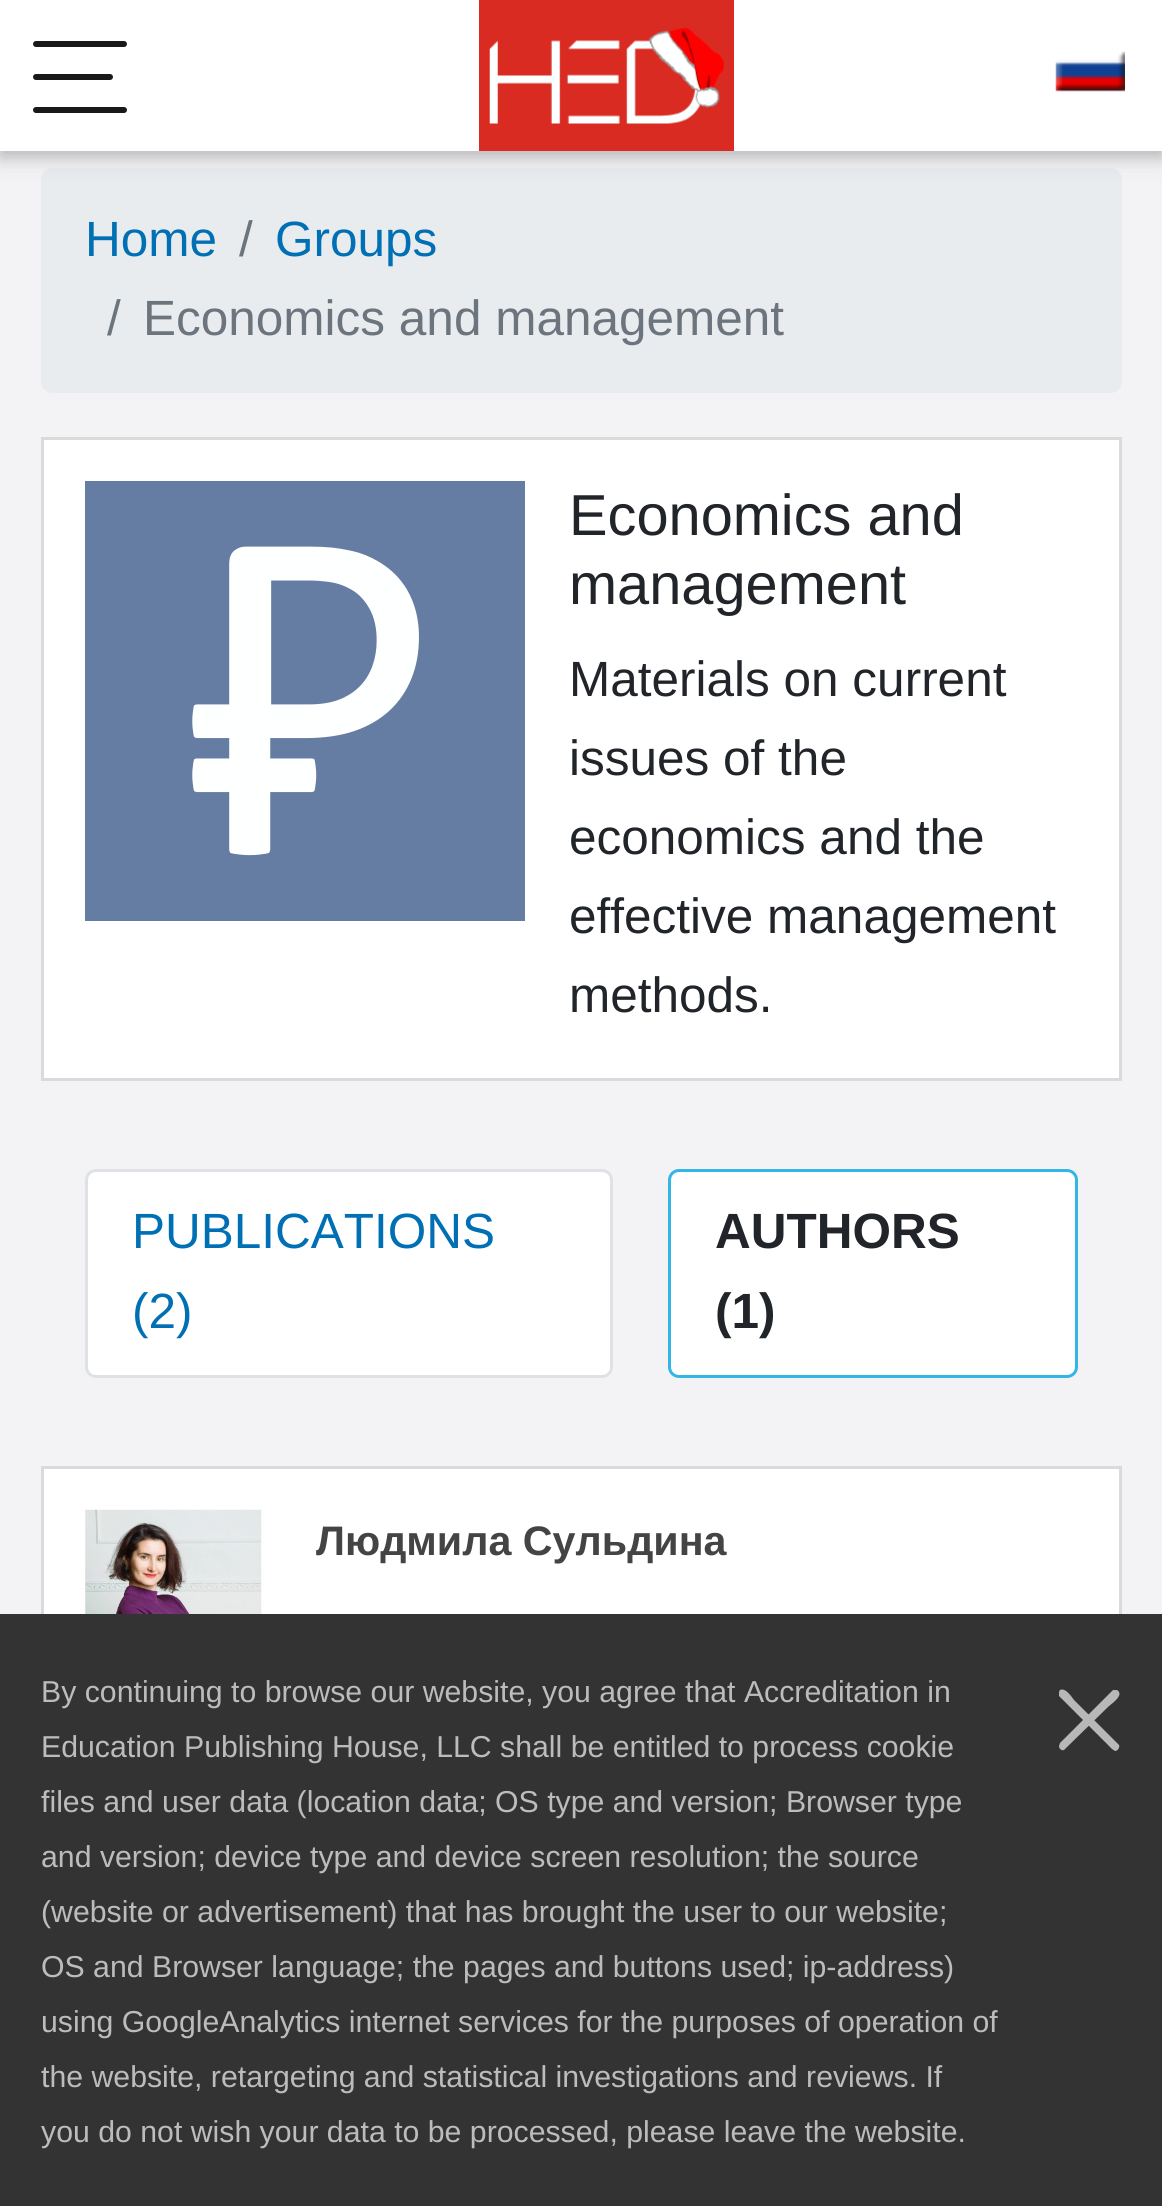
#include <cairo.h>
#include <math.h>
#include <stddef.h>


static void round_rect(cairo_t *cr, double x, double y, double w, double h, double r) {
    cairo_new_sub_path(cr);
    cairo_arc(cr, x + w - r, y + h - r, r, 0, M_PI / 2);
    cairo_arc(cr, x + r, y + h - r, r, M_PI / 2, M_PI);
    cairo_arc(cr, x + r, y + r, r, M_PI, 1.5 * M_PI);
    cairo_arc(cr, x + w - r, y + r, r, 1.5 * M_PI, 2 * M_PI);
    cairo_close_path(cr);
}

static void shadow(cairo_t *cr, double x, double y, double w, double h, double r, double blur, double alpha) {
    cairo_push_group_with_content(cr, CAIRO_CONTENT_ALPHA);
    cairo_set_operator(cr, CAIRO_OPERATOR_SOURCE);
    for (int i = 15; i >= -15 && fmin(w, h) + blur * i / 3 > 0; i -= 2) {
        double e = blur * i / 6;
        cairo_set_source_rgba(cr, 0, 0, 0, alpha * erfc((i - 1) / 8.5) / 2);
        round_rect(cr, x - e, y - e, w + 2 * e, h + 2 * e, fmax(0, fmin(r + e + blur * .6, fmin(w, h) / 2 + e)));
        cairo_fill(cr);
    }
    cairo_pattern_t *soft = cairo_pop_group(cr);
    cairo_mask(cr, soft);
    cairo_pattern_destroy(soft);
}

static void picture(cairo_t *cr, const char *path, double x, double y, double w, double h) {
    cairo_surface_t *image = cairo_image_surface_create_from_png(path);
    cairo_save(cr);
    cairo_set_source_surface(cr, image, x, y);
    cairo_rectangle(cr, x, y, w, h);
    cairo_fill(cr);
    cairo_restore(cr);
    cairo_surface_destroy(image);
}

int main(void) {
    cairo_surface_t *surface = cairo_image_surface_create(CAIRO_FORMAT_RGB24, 1162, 2206);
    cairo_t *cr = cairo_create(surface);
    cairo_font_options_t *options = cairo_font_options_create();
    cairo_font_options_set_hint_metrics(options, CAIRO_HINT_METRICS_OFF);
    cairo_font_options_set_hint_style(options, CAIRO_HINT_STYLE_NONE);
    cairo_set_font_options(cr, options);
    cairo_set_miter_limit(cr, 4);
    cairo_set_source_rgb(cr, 0.953, 0.953, 0.961);
    cairo_paint(cr);
    cairo_set_source_rgb(cr, 0.914, 0.925, 0.937);
    round_rect(cr, 41, 168, 1081, 225, 11);
    cairo_fill(cr);
    cairo_set_source_rgb(cr, 0, 0, 0);
    shadow(cr, 0, 6, 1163, 151, 0, 14, 0.12);
    shadow(cr, 0, 6, 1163, 151, 0, 7, 0.16);
    cairo_set_source_rgb(cr, 1, 1, 1);
    cairo_rectangle(cr, 0, 0, 1162, 151);
    cairo_fill(cr);
    cairo_set_source_rgb(cr, 0.098, 0.098, 0.098);
    round_rect(cr, 33, 41, 94, 6, 3);
    cairo_fill(cr);
    round_rect(cr, 33, 74, 80, 6, 3);
    cairo_fill(cr);
    round_rect(cr, 33, 107, 94, 6, 3);
    cairo_fill(cr);
    cairo_set_source_rgb(cr, 0.851, 0.169, 0.133);
    cairo_rectangle(cr, 479, 0, 255, 151);
    cairo_fill(cr);
    picture(cr, "img1.png", 489, 28, 235, 96);
    picture(cr, "img2.png", 1055, 51, 70, 41);
    cairo_select_font_face(cr, "Liberation Sans", CAIRO_FONT_SLANT_NORMAL, CAIRO_FONT_WEIGHT_NORMAL);
    cairo_set_font_size(cr, 49.5);
    cairo_set_source_rgb(cr, 0, 0.435, 0.706);
    cairo_move_to(cr, 85, 256);
    cairo_show_text(cr, "Home");
    cairo_set_source_rgb(cr, 0.424, 0.459, 0.49);
    cairo_move_to(cr, 239, 256);
    cairo_show_text(cr, "/");
    cairo_set_source_rgb(cr, 0, 0.435, 0.706);
    cairo_move_to(cr, 275, 256);
    cairo_show_text(cr, "Groups");
    cairo_set_source_rgb(cr, 0.424, 0.459, 0.49);
    cairo_move_to(cr, 107, 335);
    cairo_show_text(cr, "/");
    cairo_move_to(cr, 143, 335);
    cairo_show_text(cr, "Economics and management");
    cairo_set_source_rgb(cr, 1, 1, 1);
    cairo_rectangle(cr, 42.5, 438.5, 1078, 641);
    cairo_fill_preserve(cr);
    cairo_set_source_rgb(cr, 0.851, 0.855, 0.855);
    cairo_set_line_width(cr, 3);
    cairo_stroke(cr);
    picture(cr, "img3.png", 85, 481, 440, 440);
    cairo_set_font_size(cr, 57.75);
    cairo_set_source_rgb(cr, 0.129, 0.145, 0.161);
    cairo_move_to(cr, 569, 535);
    cairo_show_text(cr, "Economics and");
    cairo_move_to(cr, 569, 604);
    cairo_show_text(cr, "management");
    cairo_set_font_size(cr, 49.5);
    cairo_move_to(cr, 569, 696);
    cairo_show_text(cr, "Materials on current");
    cairo_move_to(cr, 569, 775);
    cairo_show_text(cr, "issues of the");
    cairo_move_to(cr, 569, 854);
    cairo_show_text(cr, "economics and the");
    cairo_move_to(cr, 569, 933);
    cairo_show_text(cr, "effective management");
    cairo_move_to(cr, 569, 1012);
    cairo_show_text(cr, "methods.");
    cairo_set_source_rgb(cr, 1, 1, 1);
    round_rect(cr, 86.5, 1170.5, 525, 206, 9.5);
    cairo_fill_preserve(cr);
    cairo_set_source_rgb(cr, 0.871, 0.886, 0.902);
    cairo_stroke(cr);
    cairo_set_source_rgb(cr, 0, 0.435, 0.706);
    cairo_move_to(cr, 132, 1248);
    cairo_show_text(cr, "PUBLICATIONS");
    cairo_move_to(cr, 132, 1328);
    cairo_show_text(cr, "(2)");
    cairo_set_source_rgb(cr, 1, 1, 1);
    round_rect(cr, 669.5, 1170.5, 407, 206, 9.5);
    cairo_fill_preserve(cr);
    cairo_set_source_rgb(cr, 0.2, 0.71, 0.898);
    cairo_stroke(cr);
    cairo_select_font_face(cr, "Liberation Sans", CAIRO_FONT_SLANT_NORMAL, CAIRO_FONT_WEIGHT_BOLD);
    cairo_set_source_rgb(cr, 0.129, 0.145, 0.161);
    cairo_move_to(cr, 715, 1248);
    cairo_show_text(cr, "AUTHORS");
    cairo_move_to(cr, 715, 1328);
    cairo_show_text(cr, "(1)");
    cairo_set_source_rgb(cr, 1, 1, 1);
    cairo_rectangle(cr, 44, 1469, 1075, 145);
    cairo_fill(cr);
    cairo_rectangle(cr, 42.5, 1467.5, 1078, 363);
    cairo_set_source_rgb(cr, 0.851, 0.855, 0.855);
    cairo_stroke(cr);
    picture(cr, "img4.png", 85, 1509, 177, 105);
    cairo_set_font_size(cr, 41.25);
    cairo_set_source_rgb(cr, 0.267, 0.267, 0.267);
    cairo_move_to(cr, 316, 1555);
    cairo_show_text(cr, "Людмила Сульдина");
    cairo_set_source_rgb(cr, 0.2, 0.2, 0.2);
    cairo_rectangle(cr, 0, 1614, 1162, 592);
    cairo_fill(cr);
    cairo_select_font_face(cr, "Liberation Sans", CAIRO_FONT_SLANT_NORMAL, CAIRO_FONT_WEIGHT_NORMAL);
    cairo_set_font_size(cr, 30.25);
    cairo_set_source_rgb(cr, 0.737, 0.737, 0.737);
    cairo_move_to(cr, 41, 1702);
    cairo_show_text(cr, "By continuing to browse our website, you agree that Accreditation in");
    cairo_set_source_rgb(cr, 0.722, 0.722, 0.722);
    cairo_new_path(cr);
    cairo_move_to(cr, 1060, 1743);
    cairo_line_to(cr, 1113, 1690);
    cairo_line_to(cr, 1115, 1690);
    cairo_curve_to(cr, 1117, 1690, 1118, 1690, 1119, 1692);
    cairo_curve_to(cr, 1122, 1697, 1110, 1705, 1109, 1706);
    cairo_line_to(cr, 1064, 1750);
    cairo_curve_to(cr, 1062, 1751, 1059, 1749, 1059, 1746);
    cairo_close_path(cr);
    cairo_fill(cr);
    cairo_new_path(cr);
    cairo_move_to(cr, 1112, 1749);
    cairo_line_to(cr, 1059, 1696);
    cairo_line_to(cr, 1059, 1694);
    cairo_curve_to(cr, 1059, 1692, 1059, 1691, 1060, 1690);
    cairo_curve_to(cr, 1066, 1687, 1073, 1699, 1074, 1700);
    cairo_line_to(cr, 1119, 1745);
    cairo_curve_to(cr, 1120, 1747, 1118, 1751, 1115, 1751);
    cairo_close_path(cr);
    cairo_fill(cr);
    cairo_set_source_rgb(cr, 0.737, 0.737, 0.737);
    cairo_move_to(cr, 41, 1757);
    cairo_show_text(cr, "Education Publishing House, LLC shall be entitled to process cookie");
    cairo_move_to(cr, 41, 1812);
    cairo_show_text(cr, "files and user data (location data; OS type and version; Browser type");
    cairo_move_to(cr, 41, 1867);
    cairo_show_text(cr, "and version; device type and device screen resolution; the source");
    cairo_move_to(cr, 41, 1922);
    cairo_show_text(cr, "(website or advertisement) that has brought the user to our website;");
    cairo_move_to(cr, 41, 1977);
    cairo_show_text(cr, "OS and Browser language; the pages and buttons used; ip-address)");
    cairo_move_to(cr, 41, 2032);
    cairo_show_text(cr, "using GoogleAnalytics internet services for the purposes of operation of");
    cairo_move_to(cr, 41, 2087);
    cairo_show_text(cr, "the website, retargeting and statistical investigations and reviews. If");
    cairo_move_to(cr, 41, 2142);
    cairo_show_text(cr, "you do not wish your data to be processed, please leave the website.");
    cairo_surface_write_to_png(surface, "page.png");
    cairo_font_options_destroy(options);
    cairo_destroy(cr);
    cairo_surface_destroy(surface);
    return 0;
}
